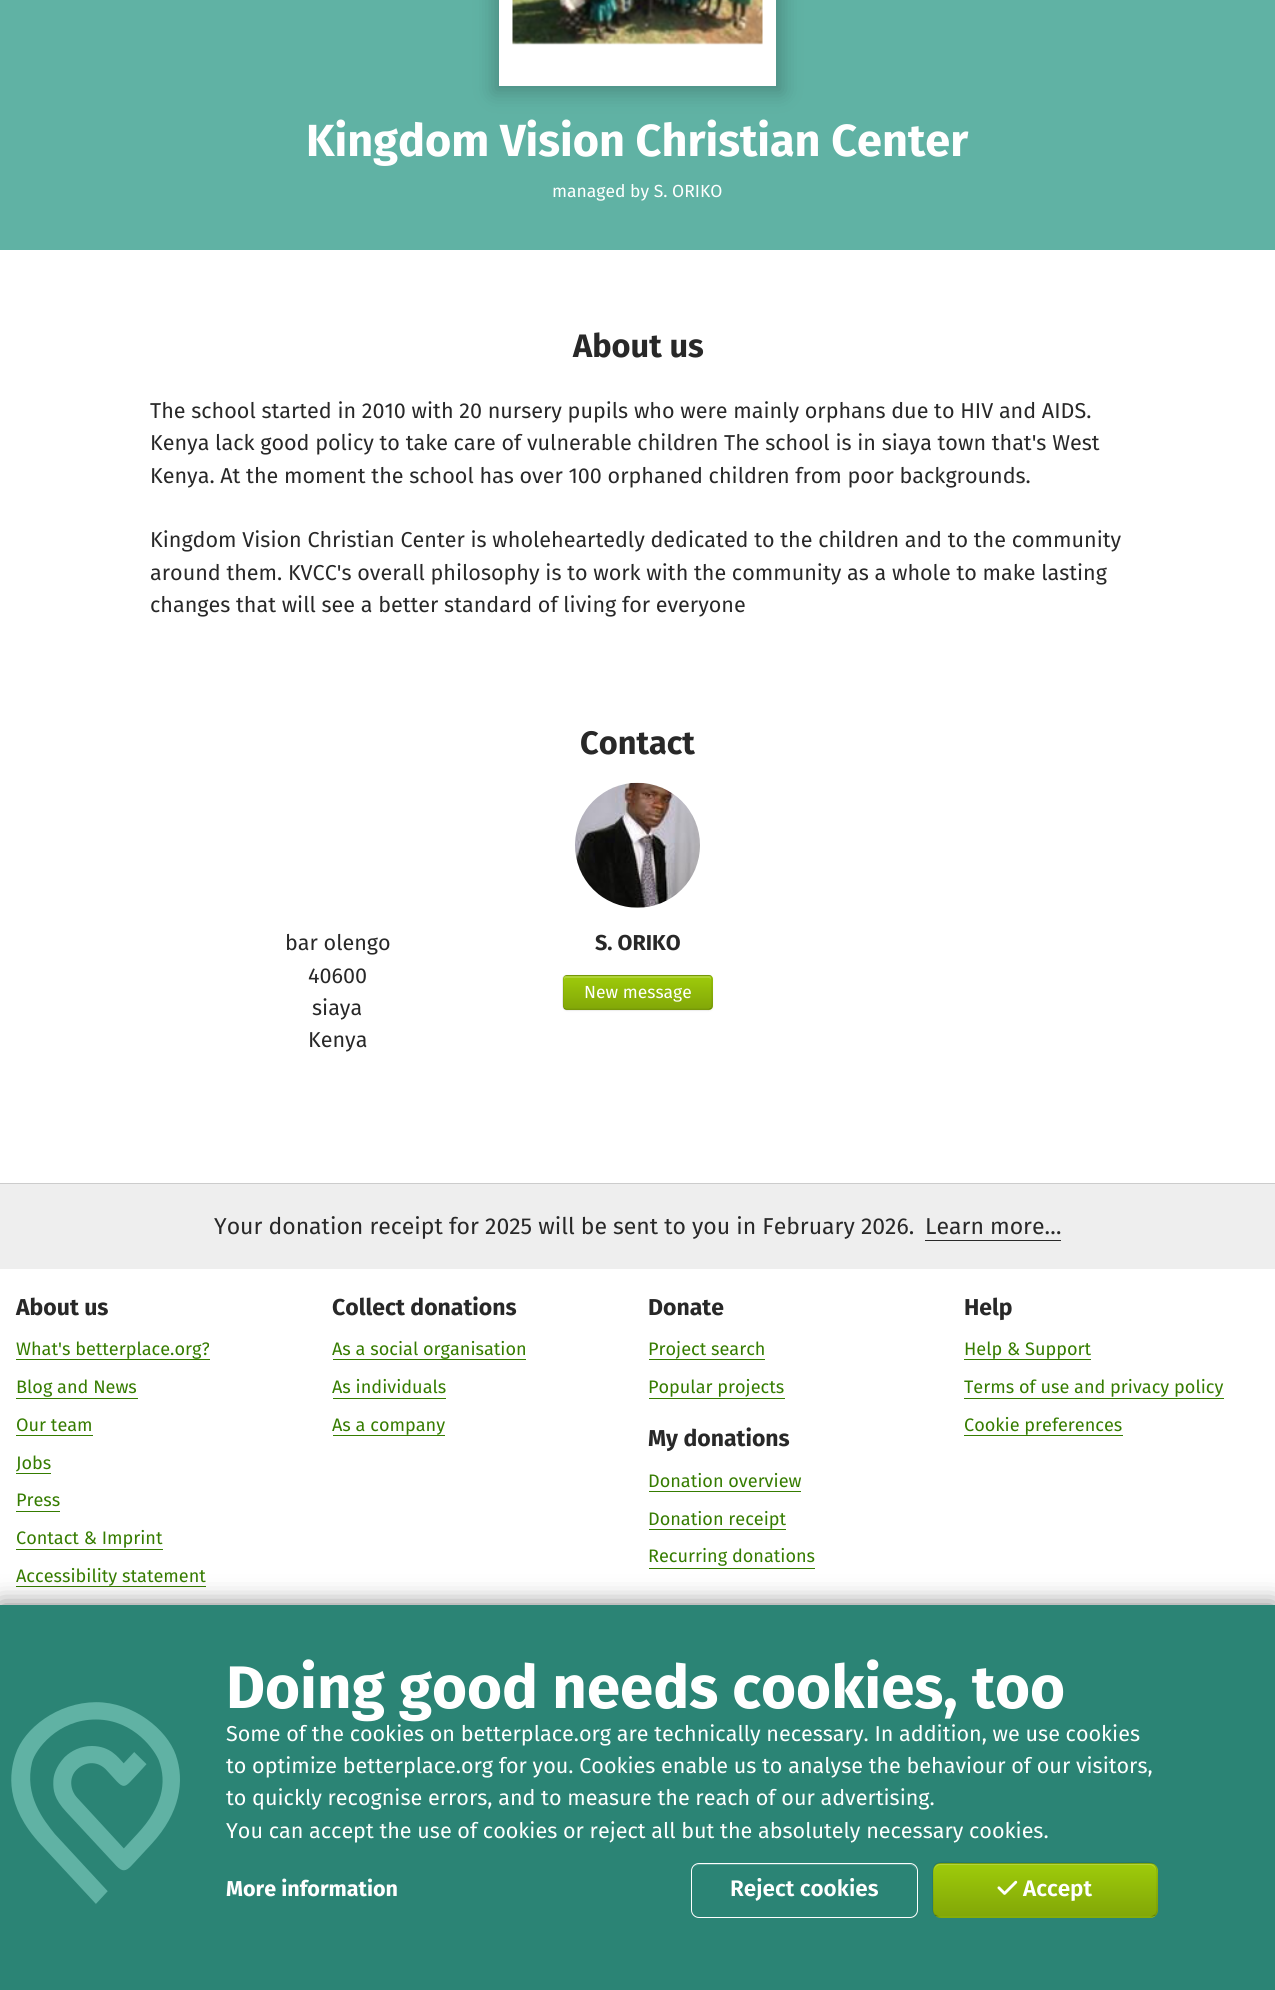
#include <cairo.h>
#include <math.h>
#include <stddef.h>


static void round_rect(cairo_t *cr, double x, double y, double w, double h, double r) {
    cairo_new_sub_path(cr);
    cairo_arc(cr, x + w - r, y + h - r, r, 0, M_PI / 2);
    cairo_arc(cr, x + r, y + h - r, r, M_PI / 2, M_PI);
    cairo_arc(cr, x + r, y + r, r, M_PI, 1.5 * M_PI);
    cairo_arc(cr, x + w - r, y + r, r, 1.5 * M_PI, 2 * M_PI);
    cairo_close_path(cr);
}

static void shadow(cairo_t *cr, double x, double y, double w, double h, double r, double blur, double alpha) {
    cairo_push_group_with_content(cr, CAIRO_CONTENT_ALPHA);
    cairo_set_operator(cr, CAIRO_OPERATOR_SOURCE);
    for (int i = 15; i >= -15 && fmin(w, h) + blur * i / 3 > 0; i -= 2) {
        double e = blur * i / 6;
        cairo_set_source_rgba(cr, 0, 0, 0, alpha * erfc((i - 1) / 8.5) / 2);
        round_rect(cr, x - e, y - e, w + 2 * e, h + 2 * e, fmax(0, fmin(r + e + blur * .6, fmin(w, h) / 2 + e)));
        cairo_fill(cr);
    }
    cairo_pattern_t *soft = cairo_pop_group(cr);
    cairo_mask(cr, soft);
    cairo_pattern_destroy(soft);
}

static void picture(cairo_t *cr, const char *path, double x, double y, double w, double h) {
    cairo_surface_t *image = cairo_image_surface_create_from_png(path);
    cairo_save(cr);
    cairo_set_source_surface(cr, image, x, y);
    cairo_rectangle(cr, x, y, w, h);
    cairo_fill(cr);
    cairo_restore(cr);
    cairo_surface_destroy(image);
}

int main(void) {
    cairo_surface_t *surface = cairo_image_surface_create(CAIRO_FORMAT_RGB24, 1275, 1990);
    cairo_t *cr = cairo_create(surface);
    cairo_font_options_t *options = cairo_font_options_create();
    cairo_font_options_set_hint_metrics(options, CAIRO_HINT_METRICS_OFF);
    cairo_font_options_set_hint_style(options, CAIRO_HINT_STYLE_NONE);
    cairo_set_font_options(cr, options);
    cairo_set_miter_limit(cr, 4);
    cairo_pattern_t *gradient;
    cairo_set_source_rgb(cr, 1, 1, 1);
    cairo_paint(cr);
    cairo_set_source_rgb(cr, 0.376, 0.698, 0.643);
    cairo_rectangle(cr, 0, 0, 1275, 250);
    cairo_fill(cr);
    cairo_set_source_rgb(cr, 0, 0, 0);
    shadow(cr, 493, -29, 290, 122, 0, 9.5, 0.2);
    cairo_set_source_rgb(cr, 1, 1, 1);
    cairo_rectangle(cr, 499, 0, 277, 86);
    cairo_fill(cr);
    picture(cr, "img1.png", 512, 0, 251, 45);
    cairo_select_font_face(cr, "Fira Sans", CAIRO_FONT_SLANT_NORMAL, CAIRO_FONT_WEIGHT_BOLD);
    cairo_set_font_size(cr, 45);
    cairo_move_to(cr, 306, 156);
    cairo_show_text(cr, "Kingdom Vision Christian Center");
    cairo_select_font_face(cr, "Fira Sans", CAIRO_FONT_SLANT_NORMAL, CAIRO_FONT_WEIGHT_NORMAL);
    cairo_set_font_size(cr, 17.5);
    cairo_move_to(cr, 552, 197);
    cairo_show_text(cr, "managed by S. ORIKO");
    cairo_select_font_face(cr, "Fira Sans", CAIRO_FONT_SLANT_NORMAL, CAIRO_FONT_WEIGHT_BOLD);
    cairo_set_font_size(cr, 32.5);
    cairo_set_source_rgb(cr, 0.157, 0.157, 0.157);
    cairo_move_to(cr, 573, 357);
    cairo_show_text(cr, "About us");
    cairo_select_font_face(cr, "Fira Sans", CAIRO_FONT_SLANT_NORMAL, CAIRO_FONT_WEIGHT_NORMAL);
    cairo_set_font_size(cr, 21.55);
    cairo_move_to(cr, 150, 418);
    cairo_show_text(cr, "The school started in 2010 with 20 nursery pupils who were mainly orphans due to HIV and AIDS.");
    cairo_move_to(cr, 150, 450);
    cairo_show_text(cr, "Kenya lack good policy to take care of vulnerable children The school is in siaya town that's West");
    cairo_move_to(cr, 150, 483);
    cairo_show_text(cr, "Kenya. At the moment the school has over 100 orphaned children from poor backgrounds.");
    cairo_move_to(cr, 150, 547);
    cairo_show_text(cr, "Kingdom Vision Christian Center is wholeheartedly dedicated to the children and to the community");
    cairo_move_to(cr, 150, 580);
    cairo_show_text(cr, "around them. KVCC's overall philosophy is to work with the community as a whole to make lasting");
    cairo_move_to(cr, 150, 612);
    cairo_show_text(cr, "changes that will see a better standard of living for everyone");
    cairo_select_font_face(cr, "Fira Sans", CAIRO_FONT_SLANT_NORMAL, CAIRO_FONT_WEIGHT_BOLD);
    cairo_set_font_size(cr, 32.5);
    cairo_move_to(cr, 580, 754);
    cairo_show_text(cr, "Contact");
    cairo_select_font_face(cr, "Fira Sans", CAIRO_FONT_SLANT_NORMAL, CAIRO_FONT_WEIGHT_NORMAL);
    cairo_set_font_size(cr, 21.55);
    cairo_move_to(cr, 285, 950);
    cairo_show_text(cr, "bar olengo");
    cairo_move_to(cr, 308, 983);
    cairo_show_text(cr, "40600");
    cairo_move_to(cr, 312, 1015);
    cairo_show_text(cr, "siaya");
    cairo_move_to(cr, 308, 1047);
    cairo_show_text(cr, "Kenya");
    picture(cr, "img2.png", 575, 782, 125, 126);
    cairo_select_font_face(cr, "Fira Sans", CAIRO_FONT_SLANT_NORMAL, CAIRO_FONT_WEIGHT_BOLD);
    cairo_move_to(cr, 595, 950);
    cairo_show_text(cr, "S. ORIKO");
    cairo_set_source_rgb(cr, 0, 0, 0);
    shadow(cr, 563, 976, 150, 35, 4, 1, 0.05);
    cairo_save(cr);
    round_rect(cr, 563, 975, 150, 35, 4);
    cairo_clip(cr);
    gradient = cairo_pattern_create_linear(638, 944, 638, 976);
    cairo_pattern_add_color_stop_rgba(gradient, 0, 0.62, 0.796, 0.039, 1);
    cairo_pattern_add_color_stop_rgba(gradient, 1, 0.51, 0.655, 0.031, 1);
    cairo_set_source(cr, gradient);
    cairo_pattern_destroy(gradient);
    cairo_rectangle(cr, 563, 975, 150, 1);
    cairo_fill(cr);
    gradient = cairo_pattern_create_linear(638, 976, 638, 1009);
    cairo_pattern_add_color_stop_rgba(gradient, 0, 0.62, 0.796, 0.039, 1);
    cairo_pattern_add_color_stop_rgba(gradient, 1, 0.51, 0.655, 0.031, 1);
    cairo_set_source(cr, gradient);
    cairo_pattern_destroy(gradient);
    cairo_rectangle(cr, 563, 976, 150, 33);
    cairo_fill(cr);
    gradient = cairo_pattern_create_linear(638, 1009, 638, 1041);
    cairo_pattern_add_color_stop_rgba(gradient, 0, 0.62, 0.796, 0.039, 1);
    cairo_pattern_add_color_stop_rgba(gradient, 1, 0.51, 0.655, 0.031, 1);
    cairo_set_source(cr, gradient);
    cairo_pattern_destroy(gradient);
    cairo_rectangle(cr, 563, 1009, 150, 1);
    cairo_fill(cr);
    cairo_restore(cr);
    cairo_set_source_rgb(cr, 0.694, 0.831, 0.231);
    cairo_new_path(cr);
    cairo_move_to(cr, 566, 978);
    cairo_line_to(cr, 709, 978);
    cairo_curve_to(cr, 710, 978, 711, 979, 711, 980);
    cairo_curve_to(cr, 711, 978, 711, 976, 709, 976);
    cairo_line_to(cr, 566, 976);
    cairo_curve_to(cr, 564, 976, 564, 978, 564, 980);
    cairo_curve_to(cr, 564, 979, 565, 978, 566, 978);
    cairo_close_path(cr);
    cairo_fill(cr);
    cairo_new_path(cr);
    cairo_move_to(cr, 711, 1008.5);
    cairo_line_to(cr, 709, 1009.5);
    cairo_line_to(cr, 566, 1009.5);
    cairo_line_to(cr, 564, 1008.5);
    cairo_set_source_rgba(cr, 0, 0, 0, 0.25);
    cairo_set_line_width(cr, 1.2);
    cairo_stroke(cr);
    cairo_new_path(cr);
    cairo_move_to(cr, 564, 1008.5);
    cairo_curve_to(cr, 562, 1006.5, 563, 995.5, 563, 992.5);
    cairo_line_to(cr, 563, 983.5);
    cairo_curve_to(cr, 563, 981, 562, 975.5, 566, 975.5);
    cairo_line_to(cr, 709, 975.5);
    cairo_curve_to(cr, 713, 975.5, 712, 981, 712, 983.5);
    cairo_line_to(cr, 712, 992.5);
    cairo_curve_to(cr, 712, 995.5, 713, 1006.5, 711, 1008.5);
    cairo_set_source_rgba(cr, 0, 0, 0, 0.1);
    cairo_stroke(cr);
    cairo_select_font_face(cr, "Fira Sans", CAIRO_FONT_SLANT_NORMAL, CAIRO_FONT_WEIGHT_NORMAL);
    cairo_set_font_size(cr, 17.5);
    cairo_set_source_rgb(cr, 1, 1, 1);
    cairo_move_to(cr, 584, 998);
    cairo_show_text(cr, "New message");
    cairo_set_source_rgb(cr, 0.8, 0.8, 0.8);
    cairo_rectangle(cr, 0, 1183, 1275, 1);
    cairo_fill(cr);
    cairo_set_source_rgb(cr, 0.933, 0.933, 0.933);
    cairo_rectangle(cr, 0, 1184, 1275, 85);
    cairo_fill(cr);
    cairo_set_font_size(cr, 23);
    cairo_set_source_rgb(cr, 0.157, 0.157, 0.157);
    cairo_move_to(cr, 214, 1234);
    cairo_show_text(cr, "Your donation receipt for 2025 will be sent to you in February 2026.");
    cairo_move_to(cr, 925, 1234);
    cairo_show_text(cr, "Learn more…");
    cairo_rectangle(cr, 925, 1240, 136, 1);
    cairo_fill(cr);
    cairo_select_font_face(cr, "Fira Sans", CAIRO_FONT_SLANT_NORMAL, CAIRO_FONT_WEIGHT_BOLD);
    cairo_move_to(cr, 16, 1315);
    cairo_show_text(cr, "About us");
    cairo_select_font_face(cr, "Fira Sans", CAIRO_FONT_SLANT_NORMAL, CAIRO_FONT_WEIGHT_NORMAL);
    cairo_set_font_size(cr, 18.1);
    cairo_set_source_rgb(cr, 0.208, 0.486, 0);
    cairo_move_to(cr, 16, 1355);
    cairo_show_text(cr, "What's betterplace.org?");
    cairo_rectangle(cr, 16, 1359, 194, 1);
    cairo_fill(cr);
    cairo_move_to(cr, 16, 1393);
    cairo_show_text(cr, "Blog and News");
    cairo_rectangle(cr, 16, 1398, 122, 1);
    cairo_fill(cr);
    cairo_move_to(cr, 16, 1431);
    cairo_show_text(cr, "Our team");
    cairo_rectangle(cr, 16, 1435, 77, 1);
    cairo_fill(cr);
    cairo_move_to(cr, 16, 1469);
    cairo_show_text(cr, "Jobs");
    cairo_rectangle(cr, 16, 1473, 35, 1);
    cairo_fill(cr);
    cairo_move_to(cr, 16, 1506);
    cairo_show_text(cr, "Press");
    cairo_rectangle(cr, 16, 1511, 44, 1);
    cairo_fill(cr);
    cairo_move_to(cr, 16, 1544);
    cairo_show_text(cr, "Contact & Imprint");
    cairo_rectangle(cr, 16, 1549, 147, 1);
    cairo_fill(cr);
    cairo_move_to(cr, 16, 1582);
    cairo_show_text(cr, "Accessibility statement");
    cairo_rectangle(cr, 16, 1586, 190, 1);
    cairo_fill(cr);
    cairo_select_font_face(cr, "Fira Sans", CAIRO_FONT_SLANT_NORMAL, CAIRO_FONT_WEIGHT_BOLD);
    cairo_set_font_size(cr, 23);
    cairo_set_source_rgb(cr, 0.157, 0.157, 0.157);
    cairo_move_to(cr, 332, 1315);
    cairo_show_text(cr, "Collect donations");
    cairo_select_font_face(cr, "Fira Sans", CAIRO_FONT_SLANT_NORMAL, CAIRO_FONT_WEIGHT_NORMAL);
    cairo_set_font_size(cr, 18.1);
    cairo_set_source_rgb(cr, 0.208, 0.486, 0);
    cairo_move_to(cr, 332, 1355);
    cairo_show_text(cr, "As a social organisation");
    cairo_rectangle(cr, 333, 1359, 193, 1);
    cairo_fill(cr);
    cairo_move_to(cr, 332, 1393);
    cairo_show_text(cr, "As individuals");
    cairo_rectangle(cr, 333, 1398, 113, 1);
    cairo_fill(cr);
    cairo_move_to(cr, 332, 1431);
    cairo_show_text(cr, "As a company");
    cairo_rectangle(cr, 333, 1435, 112, 1);
    cairo_fill(cr);
    cairo_select_font_face(cr, "Fira Sans", CAIRO_FONT_SLANT_NORMAL, CAIRO_FONT_WEIGHT_BOLD);
    cairo_set_font_size(cr, 23);
    cairo_set_source_rgb(cr, 0.157, 0.157, 0.157);
    cairo_move_to(cr, 648, 1315);
    cairo_show_text(cr, "Donate");
    cairo_select_font_face(cr, "Fira Sans", CAIRO_FONT_SLANT_NORMAL, CAIRO_FONT_WEIGHT_NORMAL);
    cairo_set_font_size(cr, 18.1);
    cairo_set_source_rgb(cr, 0.208, 0.486, 0);
    cairo_move_to(cr, 648, 1355);
    cairo_show_text(cr, "Project search");
    cairo_rectangle(cr, 649, 1359, 116, 1);
    cairo_fill(cr);
    cairo_move_to(cr, 648, 1393);
    cairo_show_text(cr, "Popular projects");
    cairo_rectangle(cr, 649, 1398, 136, 1);
    cairo_fill(cr);
    cairo_select_font_face(cr, "Fira Sans", CAIRO_FONT_SLANT_NORMAL, CAIRO_FONT_WEIGHT_BOLD);
    cairo_set_font_size(cr, 23);
    cairo_set_source_rgb(cr, 0.157, 0.157, 0.157);
    cairo_move_to(cr, 648, 1446);
    cairo_show_text(cr, "My donations");
    cairo_select_font_face(cr, "Fira Sans", CAIRO_FONT_SLANT_NORMAL, CAIRO_FONT_WEIGHT_NORMAL);
    cairo_set_font_size(cr, 18.1);
    cairo_set_source_rgb(cr, 0.208, 0.486, 0);
    cairo_move_to(cr, 648, 1487);
    cairo_show_text(cr, "Donation overview");
    cairo_rectangle(cr, 649, 1491, 152, 1);
    cairo_fill(cr);
    cairo_move_to(cr, 648, 1525);
    cairo_show_text(cr, "Donation receipt");
    cairo_rectangle(cr, 649, 1529, 137, 1);
    cairo_fill(cr);
    cairo_move_to(cr, 648, 1562);
    cairo_show_text(cr, "Recurring donations");
    cairo_rectangle(cr, 649, 1568, 166, 1);
    cairo_fill(cr);
    cairo_select_font_face(cr, "Fira Sans", CAIRO_FONT_SLANT_NORMAL, CAIRO_FONT_WEIGHT_BOLD);
    cairo_set_font_size(cr, 23);
    cairo_set_source_rgb(cr, 0.157, 0.157, 0.157);
    cairo_move_to(cr, 964, 1315);
    cairo_show_text(cr, "Help");
    cairo_select_font_face(cr, "Fira Sans", CAIRO_FONT_SLANT_NORMAL, CAIRO_FONT_WEIGHT_NORMAL);
    cairo_set_font_size(cr, 18.1);
    cairo_set_source_rgb(cr, 0.208, 0.486, 0);
    cairo_move_to(cr, 964, 1355);
    cairo_show_text(cr, "Help & Support");
    cairo_rectangle(cr, 964, 1359, 127, 1);
    cairo_fill(cr);
    cairo_move_to(cr, 964, 1393);
    cairo_show_text(cr, "Terms of use and privacy policy");
    cairo_rectangle(cr, 964, 1398, 260, 1);
    cairo_fill(cr);
    cairo_move_to(cr, 964, 1431);
    cairo_show_text(cr, "Cookie preferences");
    cairo_rectangle(cr, 964, 1435, 159, 1);
    cairo_fill(cr);
    cairo_set_source_rgb(cr, 0, 0, 0);
    shadow(cr, 0, 1605, 1275, 385, 0, 12.5, 0.5);
    cairo_set_source_rgb(cr, 0.169, 0.518, 0.459);
    cairo_rectangle(cr, 0, 1605, 1275, 385);
    cairo_fill(cr);
    picture(cr, "img3.png", 11, 1702, 169, 202);
    cairo_select_font_face(cr, "Fira Sans", CAIRO_FONT_SLANT_NORMAL, CAIRO_FONT_WEIGHT_BOLD);
    cairo_set_font_size(cr, 60);
    cairo_set_source_rgb(cr, 1, 1, 1);
    cairo_move_to(cr, 226, 1708);
    cairo_show_text(cr, "Doing good needs cookies, too");
    cairo_select_font_face(cr, "Fira Sans", CAIRO_FONT_SLANT_NORMAL, CAIRO_FONT_WEIGHT_NORMAL);
    cairo_set_font_size(cr, 21.55);
    cairo_move_to(cr, 226, 1741);
    cairo_show_text(cr, "Some of the cookies on betterplace.org are technically necessary. In addition, we use cookies");
    cairo_move_to(cr, 226, 1773);
    cairo_show_text(cr, "to optimize betterplace.org for you. Cookies enable us to analyse the behaviour of our visitors,");
    cairo_move_to(cr, 226, 1805);
    cairo_show_text(cr, "to quickly recognise errors, and to measure the reach of our advertising.");
    cairo_move_to(cr, 226, 1838);
    cairo_show_text(cr, "You can accept the use of cookies or reject all but the absolutely necessary cookies.");
    cairo_select_font_face(cr, "Fira Sans", CAIRO_FONT_SLANT_NORMAL, CAIRO_FONT_WEIGHT_BOLD);
    cairo_move_to(cr, 226, 1896);
    cairo_show_text(cr, "More information");
    cairo_set_source_rgb(cr, 0.333, 0.616, 0.569);
    cairo_new_path(cr);
    cairo_move_to(cr, 699, 1865);
    cairo_line_to(cr, 910, 1865);
    cairo_curve_to(cr, 913, 1865, 916, 1868, 916, 1871);
    cairo_line_to(cr, 916, 1870);
    cairo_curve_to(cr, 916, 1867, 913, 1864, 910, 1864);
    cairo_line_to(cr, 699, 1864);
    cairo_curve_to(cr, 697, 1864, 695, 1865, 694, 1867);
    cairo_curve_to(cr, 695, 1866, 697, 1865, 699, 1865);
    cairo_close_path(cr);
    cairo_fill(cr);
    round_rect(cr, 691.5, 1863.5, 226, 54, 7.5);
    cairo_set_source_rgb(cr, 1, 1, 1);
    cairo_set_line_width(cr, 1);
    cairo_stroke(cr);
    cairo_select_font_face(cr, "Fira Sans SemiBold", CAIRO_FONT_SLANT_NORMAL, CAIRO_FONT_WEIGHT_NORMAL);
    cairo_set_font_size(cr, 22.5);
    cairo_move_to(cr, 730, 1896);
    cairo_show_text(cr, "Reject cookies");
    cairo_save(cr);
    round_rect(cr, 933, 1863, 225, 55, 8);
    cairo_clip(cr);
    gradient = cairo_pattern_create_linear(1045, 1811, 1045, 1864);
    cairo_pattern_add_color_stop_rgba(gradient, 0, 0.62, 0.796, 0.039, 1);
    cairo_pattern_add_color_stop_rgba(gradient, 1, 0.51, 0.655, 0.031, 1);
    cairo_set_source(cr, gradient);
    cairo_pattern_destroy(gradient);
    cairo_rectangle(cr, 933, 1863, 225, 1);
    cairo_fill(cr);
    gradient = cairo_pattern_create_linear(1045, 1864, 1045, 1916);
    cairo_pattern_add_color_stop_rgba(gradient, 0, 0.62, 0.796, 0.039, 1);
    cairo_pattern_add_color_stop_rgba(gradient, 1, 0.51, 0.655, 0.031, 1);
    cairo_set_source(cr, gradient);
    cairo_pattern_destroy(gradient);
    cairo_rectangle(cr, 933, 1864, 225, 52);
    cairo_fill(cr);
    gradient = cairo_pattern_create_linear(1045, 1916, 1045, 1969);
    cairo_pattern_add_color_stop_rgba(gradient, 0, 0.62, 0.796, 0.039, 1);
    cairo_pattern_add_color_stop_rgba(gradient, 1, 0.51, 0.655, 0.031, 1);
    cairo_set_source(cr, gradient);
    cairo_pattern_destroy(gradient);
    cairo_rectangle(cr, 933, 1916, 225, 2);
    cairo_fill(cr);
    cairo_restore(cr);
    cairo_set_source_rgb(cr, 0.694, 0.835, 0.231);
    cairo_new_path(cr);
    cairo_move_to(cr, 940, 1865);
    cairo_line_to(cr, 1150, 1865);
    cairo_curve_to(cr, 1153, 1865, 1156, 1868, 1156, 1871);
    cairo_line_to(cr, 1156, 1870);
    cairo_curve_to(cr, 1156, 1867, 1153, 1864, 1150, 1864);
    cairo_line_to(cr, 940, 1864);
    cairo_curve_to(cr, 937, 1864, 934, 1867, 934, 1870);
    cairo_line_to(cr, 934, 1871);
    cairo_curve_to(cr, 934, 1868, 937, 1865, 940, 1865);
    cairo_close_path(cr);
    cairo_fill(cr);
    cairo_new_path(cr);
    cairo_move_to(cr, 1155, 1915);
    cairo_curve_to(cr, 1153.5, 1916, 1152, 1917, 1150, 1917);
    cairo_line_to(cr, 940, 1917);
    cairo_curve_to(cr, 938, 1917, 936.5, 1916, 935, 1915);
    cairo_set_source_rgba(cr, 0, 0, 0, 0.25);
    cairo_set_line_width(cr, 1.2);
    cairo_stroke(cr);
    cairo_new_path(cr);
    cairo_move_to(cr, 935, 1915);
    cairo_curve_to(cr, 932, 1912, 933, 1907, 933, 1903.5);
    cairo_line_to(cr, 933, 1896.5);
    cairo_curve_to(cr, 933, 1854.5, 927.5, 1863, 975, 1863);
    cairo_line_to(cr, 1115, 1863);
    cairo_curve_to(cr, 1162.5, 1863, 1157, 1854.5, 1157, 1896.5);
    cairo_line_to(cr, 1157, 1903.5);
    cairo_curve_to(cr, 1157, 1907, 1158, 1912, 1155, 1915);
    cairo_set_source_rgba(cr, 0, 0, 0, 0.1);
    cairo_stroke(cr);
    picture(cr, "img4.png", 997, 1880, 21, 15);
    cairo_set_source_rgb(cr, 1, 1, 1);
    cairo_move_to(cr, 1023, 1896);
    cairo_show_text(cr, "Accept");
    cairo_surface_write_to_png(surface, "page.png");
    cairo_font_options_destroy(options);
    cairo_destroy(cr);
    cairo_surface_destroy(surface);
    return 0;
}
